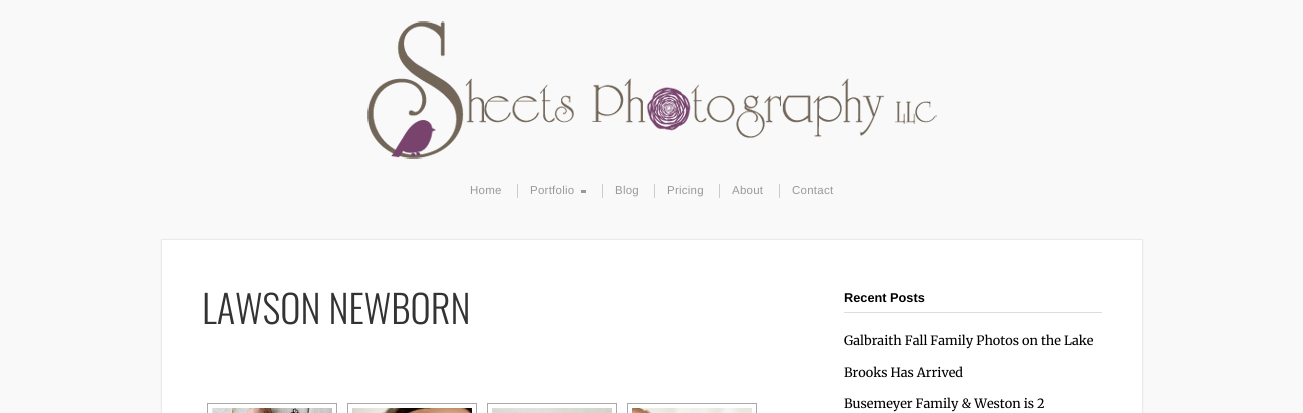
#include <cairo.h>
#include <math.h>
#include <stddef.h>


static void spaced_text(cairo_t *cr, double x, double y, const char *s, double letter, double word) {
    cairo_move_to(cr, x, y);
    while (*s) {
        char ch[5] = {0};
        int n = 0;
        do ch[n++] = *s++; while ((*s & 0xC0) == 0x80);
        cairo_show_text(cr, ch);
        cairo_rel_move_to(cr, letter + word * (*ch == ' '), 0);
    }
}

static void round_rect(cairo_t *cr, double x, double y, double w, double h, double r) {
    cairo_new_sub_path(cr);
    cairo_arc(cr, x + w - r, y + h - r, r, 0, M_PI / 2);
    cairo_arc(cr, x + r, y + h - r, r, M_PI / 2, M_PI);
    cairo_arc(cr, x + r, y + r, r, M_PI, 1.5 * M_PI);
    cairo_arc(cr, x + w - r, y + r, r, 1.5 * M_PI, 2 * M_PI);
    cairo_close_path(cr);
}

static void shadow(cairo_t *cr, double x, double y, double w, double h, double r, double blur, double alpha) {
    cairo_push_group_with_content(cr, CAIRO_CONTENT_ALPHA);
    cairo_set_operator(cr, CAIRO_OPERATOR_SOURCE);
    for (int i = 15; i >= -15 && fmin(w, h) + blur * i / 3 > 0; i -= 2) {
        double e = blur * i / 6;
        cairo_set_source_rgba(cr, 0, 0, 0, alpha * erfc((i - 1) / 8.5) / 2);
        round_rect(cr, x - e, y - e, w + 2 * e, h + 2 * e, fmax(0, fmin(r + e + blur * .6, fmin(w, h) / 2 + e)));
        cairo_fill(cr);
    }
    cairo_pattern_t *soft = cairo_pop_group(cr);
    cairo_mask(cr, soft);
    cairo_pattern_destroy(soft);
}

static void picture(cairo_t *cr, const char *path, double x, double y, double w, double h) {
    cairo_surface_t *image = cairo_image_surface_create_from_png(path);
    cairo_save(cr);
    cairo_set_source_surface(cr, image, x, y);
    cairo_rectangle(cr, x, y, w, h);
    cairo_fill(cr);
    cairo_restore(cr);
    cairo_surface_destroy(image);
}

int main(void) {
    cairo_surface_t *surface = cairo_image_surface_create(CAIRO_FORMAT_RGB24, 1303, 413);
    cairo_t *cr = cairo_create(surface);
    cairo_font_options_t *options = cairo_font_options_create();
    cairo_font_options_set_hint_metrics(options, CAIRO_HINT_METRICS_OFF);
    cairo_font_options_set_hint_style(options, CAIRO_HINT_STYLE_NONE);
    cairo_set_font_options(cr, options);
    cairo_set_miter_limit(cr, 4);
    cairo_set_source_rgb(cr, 0.976, 0.976, 0.976);
    cairo_paint(cr);
    picture(cr, "img1.png", 367, 21, 570, 138);
    cairo_select_font_face(cr, "Liberation Sans", CAIRO_FONT_SLANT_NORMAL, CAIRO_FONT_WEIGHT_NORMAL);
    cairo_set_font_size(cr, 11.5);
    cairo_set_source_rgb(cr, 0.6, 0.6, 0.6);
    spaced_text(cr, 470, 194, "Home", 0.25, 0);
    cairo_set_source_rgb(cr, 0.8, 0.8, 0.8);
    cairo_rectangle(cr, 517, 184, 1, 14);
    cairo_fill(cr);
    cairo_set_source_rgb(cr, 0.6, 0.6, 0.6);
    spaced_text(cr, 530, 194, "Portfolio", 0.25, 0);
    cairo_rectangle(cr, 581, 190, 5, 3);
    cairo_fill(cr);
    cairo_set_source_rgb(cr, 0.8, 0.8, 0.8);
    cairo_rectangle(cr, 602, 184, 1, 14);
    cairo_fill(cr);
    cairo_set_source_rgb(cr, 0.6, 0.6, 0.6);
    spaced_text(cr, 615, 194, "Blog", 0.25, 0);
    cairo_set_source_rgb(cr, 0.8, 0.8, 0.8);
    cairo_rectangle(cr, 654, 184, 1, 14);
    cairo_fill(cr);
    cairo_set_source_rgb(cr, 0.6, 0.6, 0.6);
    spaced_text(cr, 667, 194, "Pricing", 0.25, 0);
    cairo_set_source_rgb(cr, 0.8, 0.8, 0.8);
    cairo_rectangle(cr, 719, 184, 1, 14);
    cairo_fill(cr);
    cairo_set_source_rgb(cr, 0.6, 0.6, 0.6);
    spaced_text(cr, 732, 194, "About", 0.25, 0);
    cairo_set_source_rgb(cr, 0.8, 0.8, 0.8);
    cairo_rectangle(cr, 779, 184, 1, 14);
    cairo_fill(cr);
    cairo_set_source_rgb(cr, 0.6, 0.6, 0.6);
    spaced_text(cr, 792, 194, "Contact", 0.25, 0);
    cairo_set_source_rgb(cr, 0.8, 0.8, 0.8);
    shadow(cr, 162, 240, 980, 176, 0, 1, 1);
    cairo_set_source_rgb(cr, 1, 1, 1);
    cairo_rectangle(cr, 162, 240, 980, 173);
    cairo_fill(cr);
    cairo_select_font_face(cr, "Oswald Light", CAIRO_FONT_SLANT_NORMAL, CAIRO_FONT_WEIGHT_NORMAL);
    cairo_set_font_size(cr, 38.5);
    cairo_set_source_rgb(cr, 0.2, 0.2, 0.2);
    cairo_move_to(cr, 202, 324);
    cairo_show_text(cr, "LAWSON NEWBORN");
    cairo_rectangle(cr, 207.5, 403.5, 129, 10);
    cairo_set_source_rgb(cr, 0.663, 0.663, 0.663);
    cairo_set_line_width(cr, 1);
    cairo_stroke(cr);
    picture(cr, "img2.png", 212, 408, 120, 5);
    cairo_rectangle(cr, 347.5, 403.5, 129, 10);
    cairo_stroke(cr);
    picture(cr, "img3.png", 352, 408, 120, 5);
    cairo_rectangle(cr, 487.5, 403.5, 129, 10);
    cairo_stroke(cr);
    picture(cr, "img4.png", 492, 408, 120, 5);
    cairo_rectangle(cr, 627.5, 403.5, 129, 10);
    cairo_stroke(cr);
    picture(cr, "img5.png", 632, 408, 120, 5);
    cairo_set_source_rgb(cr, 0.867, 0.867, 0.867);
    cairo_rectangle(cr, 844, 312, 258, 1);
    cairo_fill(cr);
    cairo_select_font_face(cr, "Liberation Sans", CAIRO_FONT_SLANT_NORMAL, CAIRO_FONT_WEIGHT_BOLD);
    cairo_set_font_size(cr, 12.75);
    cairo_set_source_rgb(cr, 0, 0, 0);
    cairo_move_to(cr, 844, 302);
    cairo_show_text(cr, "Recent Posts");
    cairo_select_font_face(cr, "Merriweather", CAIRO_FONT_SLANT_NORMAL, CAIRO_FONT_WEIGHT_NORMAL);
    cairo_move_to(cr, 844, 345);
    cairo_show_text(cr, "Galbraith Fall Family Photos on the Lake");
    cairo_move_to(cr, 844, 377);
    cairo_show_text(cr, "Brooks Has Arrived");
    cairo_move_to(cr, 844, 408);
    cairo_show_text(cr, "Busemeyer Family & Weston is 2");
    cairo_surface_write_to_png(surface, "page.png");
    cairo_font_options_destroy(options);
    cairo_destroy(cr);
    cairo_surface_destroy(surface);
    return 0;
}
